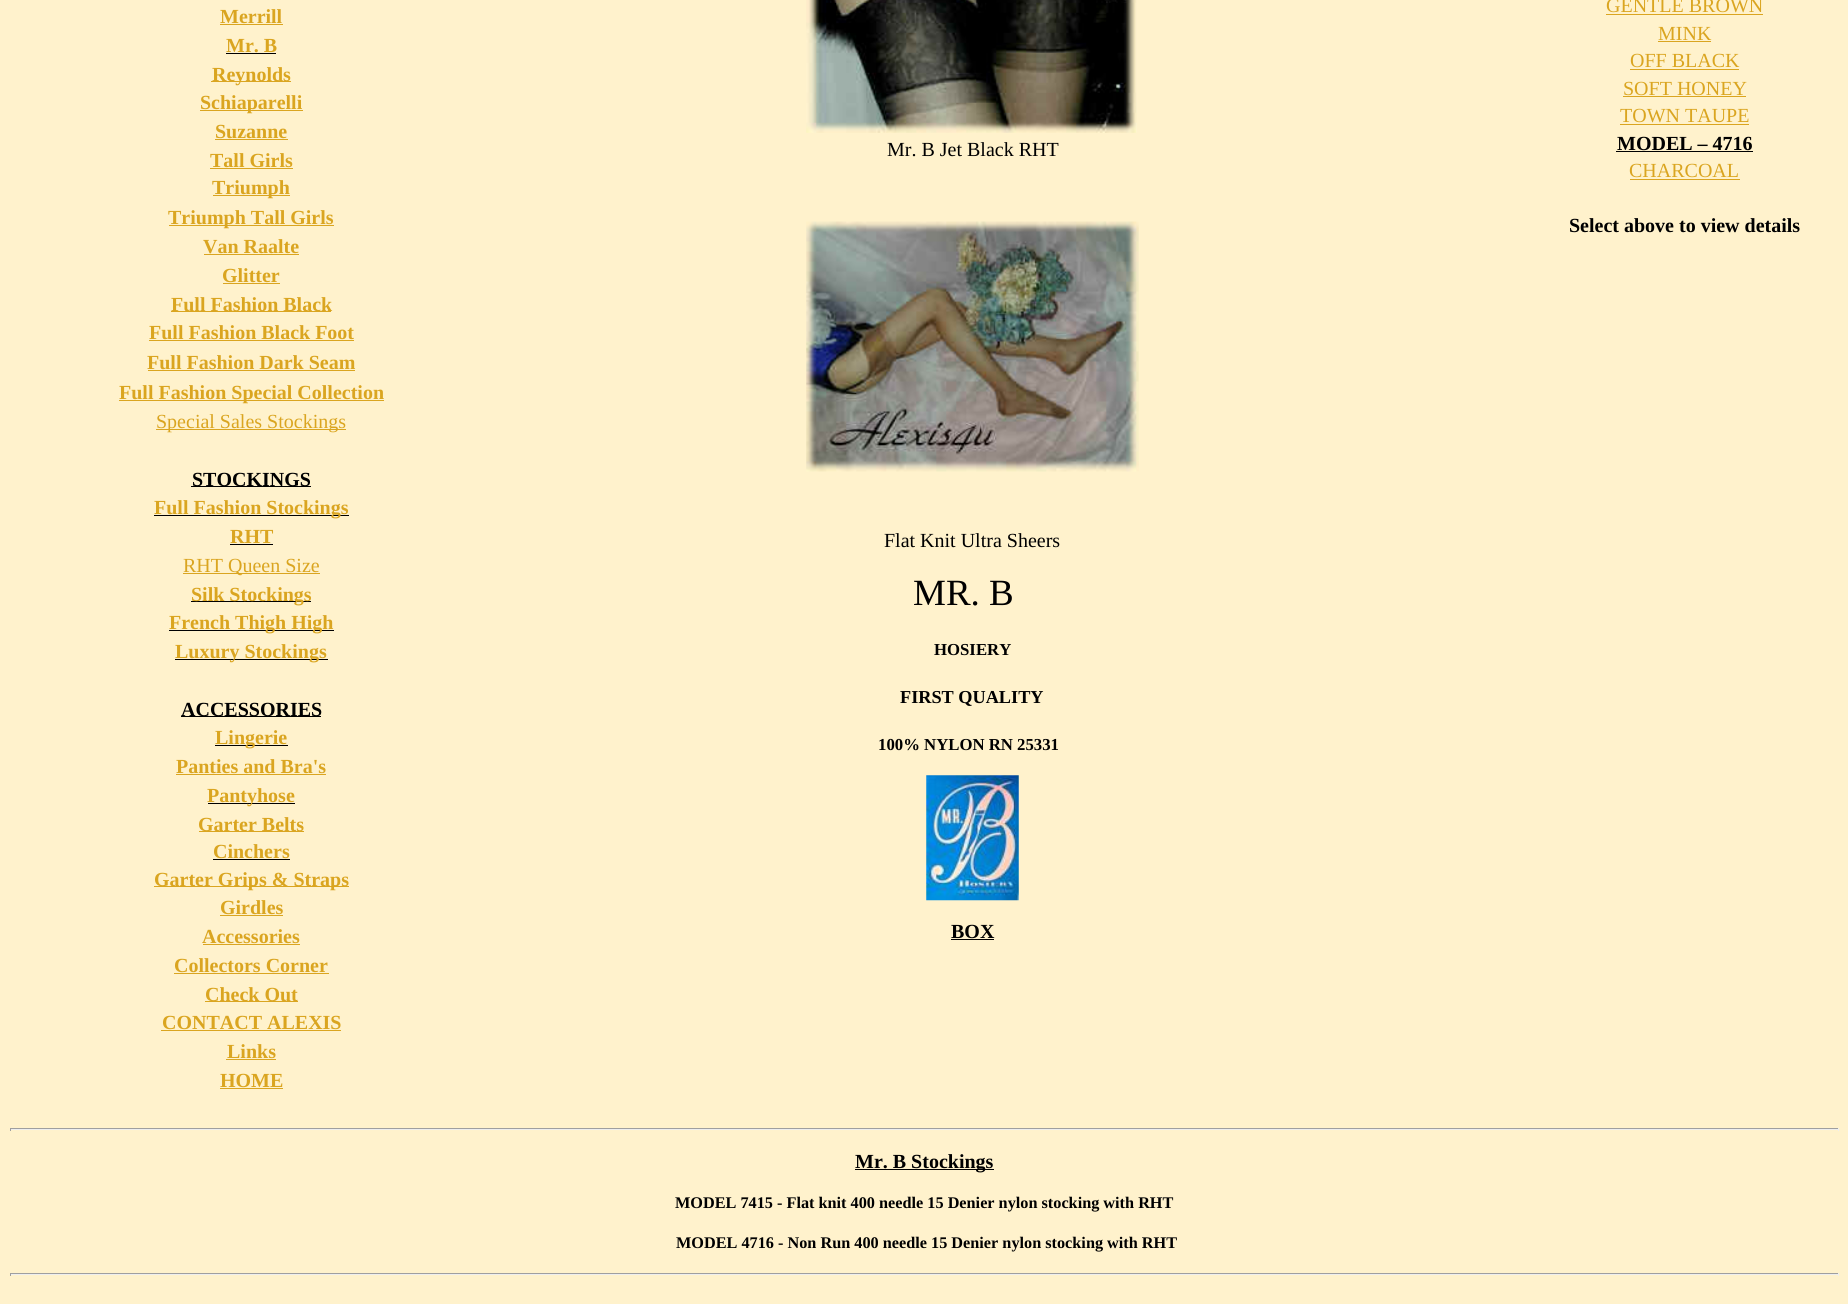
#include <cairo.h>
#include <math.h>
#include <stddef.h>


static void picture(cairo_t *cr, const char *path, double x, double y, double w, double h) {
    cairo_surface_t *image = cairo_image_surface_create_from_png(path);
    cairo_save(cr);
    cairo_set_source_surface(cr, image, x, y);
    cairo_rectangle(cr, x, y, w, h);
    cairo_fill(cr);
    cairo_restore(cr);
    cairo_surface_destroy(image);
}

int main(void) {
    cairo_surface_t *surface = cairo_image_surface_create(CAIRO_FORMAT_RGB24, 1848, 1304);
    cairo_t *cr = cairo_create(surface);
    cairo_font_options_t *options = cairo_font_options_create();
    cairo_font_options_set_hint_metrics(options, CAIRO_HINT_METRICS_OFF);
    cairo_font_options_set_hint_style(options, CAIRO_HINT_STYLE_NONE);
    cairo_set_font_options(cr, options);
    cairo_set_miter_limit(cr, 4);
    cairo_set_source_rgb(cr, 1, 0.949, 0.8);
    cairo_paint(cr);
    cairo_select_font_face(cr, "Liberation Serif", CAIRO_FONT_SLANT_NORMAL, CAIRO_FONT_WEIGHT_BOLD);
    cairo_set_font_size(cr, 20);
    cairo_set_source_rgb(cr, 0.855, 0.647, 0.125);
    cairo_move_to(cr, 220, 23);
    cairo_show_text(cr, "Merrill");
    cairo_rectangle(cr, 220, 24, 63, 1);
    cairo_fill(cr);
    cairo_move_to(cr, 226, 52);
    cairo_show_text(cr, "Mr. B");
    cairo_set_source_rgb(cr, 0, 0, 0);
    cairo_rectangle(cr, 226, 53, 50, 1);
    cairo_fill(cr);
    cairo_set_source_rgb(cr, 0.855, 0.647, 0.125);
    cairo_rectangle(cr, 211, 81, 80, 1);
    cairo_fill(cr);
    cairo_move_to(cr, 212, 81);
    cairo_show_text(cr, "Reynolds");
    cairo_rectangle(cr, 200, 110, 103, 1);
    cairo_fill(cr);
    cairo_move_to(cr, 200, 109);
    cairo_show_text(cr, "Schiaparelli");
    cairo_move_to(cr, 215, 138);
    cairo_show_text(cr, "Suzanne");
    cairo_rectangle(cr, 215, 139, 73, 1);
    cairo_fill(cr);
    cairo_move_to(cr, 210, 167);
    cairo_show_text(cr, "Tall Girls");
    cairo_rectangle(cr, 210, 168, 83, 1);
    cairo_fill(cr);
    cairo_rectangle(cr, 213, 195, 77, 1);
    cairo_fill(cr);
    cairo_move_to(cr, 212, 194);
    cairo_show_text(cr, "Triumph");
    cairo_rectangle(cr, 169, 225, 165, 1);
    cairo_fill(cr);
    cairo_move_to(cr, 168, 224);
    cairo_show_text(cr, "Triumph Tall Girls");
    cairo_move_to(cr, 203, 253);
    cairo_show_text(cr, "Van Raalte");
    cairo_rectangle(cr, 204, 254, 95, 1);
    cairo_fill(cr);
    cairo_move_to(cr, 222, 282);
    cairo_show_text(cr, "Glitter");
    cairo_rectangle(cr, 223, 283, 57, 1);
    cairo_fill(cr);
    cairo_rectangle(cr, 171, 311, 160, 1);
    cairo_fill(cr);
    cairo_move_to(cr, 171, 311);
    cairo_show_text(cr, "Full Fashion Black");
    cairo_move_to(cr, 149, 339);
    cairo_show_text(cr, "Full Fashion Black Foot");
    cairo_rectangle(cr, 149, 340, 205, 1);
    cairo_fill(cr);
    cairo_move_to(cr, 147, 369);
    cairo_show_text(cr, "Full Fashion Dark Seam");
    cairo_rectangle(cr, 148, 370, 207, 1);
    cairo_fill(cr);
    cairo_rectangle(cr, 119, 400, 265, 1);
    cairo_fill(cr);
    cairo_move_to(cr, 119, 399);
    cairo_show_text(cr, "Full Fashion Special Collection");
    cairo_rectangle(cr, 156, 429, 190, 1);
    cairo_fill(cr);
    cairo_select_font_face(cr, "Liberation Serif", CAIRO_FONT_SLANT_NORMAL, CAIRO_FONT_WEIGHT_NORMAL);
    cairo_move_to(cr, 156, 428);
    cairo_show_text(cr, "Special Sales Stockings");
    cairo_set_source_rgb(cr, 0, 0, 0);
    cairo_rectangle(cr, 191, 486, 120, 1);
    cairo_fill(cr);
    cairo_select_font_face(cr, "Liberation Serif", CAIRO_FONT_SLANT_NORMAL, CAIRO_FONT_WEIGHT_BOLD);
    cairo_move_to(cr, 192, 486);
    cairo_show_text(cr, "STOCKINGS");
    cairo_rectangle(cr, 154, 515, 195, 1);
    cairo_fill(cr);
    cairo_set_source_rgb(cr, 0.855, 0.647, 0.125);
    cairo_move_to(cr, 154, 514);
    cairo_show_text(cr, "Full Fashion Stockings");
    cairo_move_to(cr, 230, 543);
    cairo_show_text(cr, "RHT");
    cairo_set_source_rgb(cr, 0, 0, 0);
    cairo_rectangle(cr, 230, 544, 43, 1);
    cairo_fill(cr);
    cairo_set_source_rgb(cr, 0.855, 0.647, 0.125);
    cairo_rectangle(cr, 183, 573, 137, 1);
    cairo_fill(cr);
    cairo_select_font_face(cr, "Liberation Serif", CAIRO_FONT_SLANT_NORMAL, CAIRO_FONT_WEIGHT_NORMAL);
    cairo_move_to(cr, 183, 572);
    cairo_show_text(cr, "RHT Queen Size");
    cairo_set_source_rgb(cr, 0, 0, 0);
    cairo_rectangle(cr, 191, 601, 120, 1);
    cairo_fill(cr);
    cairo_select_font_face(cr, "Liberation Serif", CAIRO_FONT_SLANT_NORMAL, CAIRO_FONT_WEIGHT_BOLD);
    cairo_set_source_rgb(cr, 0.855, 0.647, 0.125);
    cairo_move_to(cr, 191, 601);
    cairo_show_text(cr, "Silk Stockings");
    cairo_set_source_rgb(cr, 0, 0, 0);
    cairo_rectangle(cr, 169, 630, 165, 1);
    cairo_fill(cr);
    cairo_set_source_rgb(cr, 0.855, 0.647, 0.125);
    cairo_move_to(cr, 169, 629);
    cairo_show_text(cr, "French Thigh High");
    cairo_set_source_rgb(cr, 0, 0, 0);
    cairo_rectangle(cr, 175, 659, 153, 1);
    cairo_fill(cr);
    cairo_set_source_rgb(cr, 0.855, 0.647, 0.125);
    cairo_move_to(cr, 175, 658);
    cairo_show_text(cr, "Luxury Stockings");
    cairo_set_source_rgb(cr, 0, 0, 0);
    cairo_rectangle(cr, 181, 716, 140, 1);
    cairo_fill(cr);
    cairo_move_to(cr, 181, 716);
    cairo_show_text(cr, "ACCESSORIES");
    cairo_rectangle(cr, 215, 745, 73, 1);
    cairo_fill(cr);
    cairo_set_source_rgb(cr, 0.855, 0.647, 0.125);
    cairo_move_to(cr, 215, 744);
    cairo_show_text(cr, "Lingerie");
    cairo_move_to(cr, 176, 773);
    cairo_show_text(cr, "Panties and Bra's");
    cairo_rectangle(cr, 176, 774, 150, 1);
    cairo_fill(cr);
    cairo_set_source_rgb(cr, 0, 0, 0);
    cairo_rectangle(cr, 208, 803, 87, 1);
    cairo_fill(cr);
    cairo_set_source_rgb(cr, 0.855, 0.647, 0.125);
    cairo_move_to(cr, 207, 802);
    cairo_show_text(cr, "Pantyhose");
    cairo_rectangle(cr, 199, 831, 105, 1);
    cairo_fill(cr);
    cairo_move_to(cr, 198, 831);
    cairo_show_text(cr, "Garter Belts");
    cairo_move_to(cr, 213, 858);
    cairo_show_text(cr, "Cinchers");
    cairo_set_source_rgb(cr, 0, 0, 0);
    cairo_rectangle(cr, 213, 859, 77, 1);
    cairo_fill(cr);
    cairo_set_source_rgb(cr, 0.855, 0.647, 0.125);
    cairo_rectangle(cr, 154, 886, 195, 1);
    cairo_fill(cr);
    cairo_move_to(cr, 154, 886);
    cairo_show_text(cr, "Garter Grips & Straps");
    cairo_move_to(cr, 220, 914);
    cairo_show_text(cr, "Girdles");
    cairo_rectangle(cr, 220, 915, 63, 1);
    cairo_fill(cr);
    cairo_move_to(cr, 202, 943);
    cairo_show_text(cr, "Accessories");
    cairo_rectangle(cr, 203, 944, 97, 1);
    cairo_fill(cr);
    cairo_move_to(cr, 174, 972);
    cairo_show_text(cr, "Collectors Corner");
    cairo_rectangle(cr, 174, 973, 155, 1);
    cairo_fill(cr);
    cairo_rectangle(cr, 205, 1001, 93, 1);
    cairo_fill(cr);
    cairo_move_to(cr, 205, 1001);
    cairo_show_text(cr, "Check Out");
    cairo_move_to(cr, 162, 1029);
    cairo_show_text(cr, "CONTACT ALEXIS");
    cairo_rectangle(cr, 161, 1030, 180, 1);
    cairo_fill(cr);
    cairo_move_to(cr, 227, 1058);
    cairo_show_text(cr, "Links");
    cairo_rectangle(cr, 226, 1059, 50, 1);
    cairo_fill(cr);
    cairo_move_to(cr, 220, 1087);
    cairo_show_text(cr, "HOME");
    cairo_rectangle(cr, 220, 1088, 63, 1);
    cairo_fill(cr);
    picture(cr, "img1.png", 806, 0, 331, 133);
    cairo_select_font_face(cr, "Liberation Serif", CAIRO_FONT_SLANT_NORMAL, CAIRO_FONT_WEIGHT_NORMAL);
    cairo_set_source_rgb(cr, 0, 0, 0);
    cairo_move_to(cr, 887, 156);
    cairo_show_text(cr, "Mr. B Jet Black RHT");
    picture(cr, "img2.png", 806, 221, 333, 251);
    cairo_move_to(cr, 884, 547);
    cairo_show_text(cr, "Flat Knit Ultra Sheers");
    cairo_set_font_size(cr, 37);
    cairo_move_to(cr, 913, 605);
    cairo_show_text(cr, "MR. B");
    cairo_select_font_face(cr, "Liberation Serif", CAIRO_FONT_SLANT_NORMAL, CAIRO_FONT_WEIGHT_BOLD);
    cairo_set_font_size(cr, 16.75);
    cairo_move_to(cr, 934, 655);
    cairo_show_text(cr, "HOSIERY");
    cairo_set_font_size(cr, 18.25);
    cairo_move_to(cr, 900, 703);
    cairo_show_text(cr, "FIRST QUALITY");
    cairo_set_font_size(cr, 16.75);
    cairo_move_to(cr, 878, 750);
    cairo_show_text(cr, "100% NYLON RN 25331");
    picture(cr, "img3.png", 926, 775, 93, 126);
    cairo_set_font_size(cr, 20);
    cairo_move_to(cr, 951, 938);
    cairo_show_text(cr, "BOX");
    cairo_rectangle(cr, 951, 939, 43, 1);
    cairo_fill(cr);
    cairo_select_font_face(cr, "Liberation Serif", CAIRO_FONT_SLANT_NORMAL, CAIRO_FONT_WEIGHT_NORMAL);
    cairo_set_source_rgb(cr, 0.855, 0.647, 0.125);
    cairo_move_to(cr, 1606, 12);
    cairo_show_text(cr, "GENTLE BROWN");
    cairo_rectangle(cr, 1606, 14, 157, 1);
    cairo_fill(cr);
    cairo_move_to(cr, 1658, 40);
    cairo_show_text(cr, "MINK");
    cairo_rectangle(cr, 1658, 41, 53, 1);
    cairo_fill(cr);
    cairo_move_to(cr, 1630, 67);
    cairo_show_text(cr, "OFF BLACK");
    cairo_rectangle(cr, 1630, 69, 109, 1);
    cairo_fill(cr);
    cairo_move_to(cr, 1623, 95);
    cairo_show_text(cr, "SOFT HONEY");
    cairo_rectangle(cr, 1623, 96, 123, 1);
    cairo_fill(cr);
    cairo_move_to(cr, 1620, 122);
    cairo_show_text(cr, "TOWN TAUPE");
    cairo_rectangle(cr, 1620, 124, 129, 1);
    cairo_fill(cr);
    cairo_select_font_face(cr, "Liberation Serif", CAIRO_FONT_SLANT_NORMAL, CAIRO_FONT_WEIGHT_BOLD);
    cairo_set_source_rgb(cr, 0, 0, 0);
    cairo_move_to(cr, 1617, 150);
    cairo_show_text(cr, "MODEL – 4716");
    cairo_rectangle(cr, 1616, 151, 137, 1);
    cairo_fill(cr);
    cairo_select_font_face(cr, "Liberation Serif", CAIRO_FONT_SLANT_NORMAL, CAIRO_FONT_WEIGHT_NORMAL);
    cairo_set_source_rgb(cr, 0.855, 0.647, 0.125);
    cairo_move_to(cr, 1629, 177);
    cairo_show_text(cr, "CHARCOAL");
    cairo_rectangle(cr, 1630, 179, 110, 1);
    cairo_fill(cr);
    cairo_select_font_face(cr, "Liberation Serif", CAIRO_FONT_SLANT_NORMAL, CAIRO_FONT_WEIGHT_BOLD);
    cairo_set_source_rgb(cr, 0, 0, 0);
    cairo_move_to(cr, 1569, 232);
    cairo_show_text(cr, "Select above to view details");
    cairo_set_source_rgb(cr, 0.624, 0.624, 0.624);
    cairo_rectangle(cr, 10, 1128, 1829, 1);
    cairo_fill(cr);
    cairo_set_source_rgb(cr, 0.933, 0.933, 0.933);
    cairo_rectangle(cr, 1838, 1128, 1, 3);
    cairo_fill(cr);
    cairo_rectangle(cr, 10, 1129, 1829, 1);
    cairo_fill(cr);
    cairo_set_source_rgb(cr, 0.624, 0.624, 0.624);
    cairo_rectangle(cr, 10, 1128, 1, 3);
    cairo_fill(cr);
    cairo_set_source_rgb(cr, 0, 0, 0);
    cairo_rectangle(cr, 855, 1169, 139, 1);
    cairo_fill(cr);
    cairo_move_to(cr, 855, 1168);
    cairo_show_text(cr, "Mr. B Stockings");
    cairo_set_font_size(cr, 16.25);
    cairo_move_to(cr, 675, 1208);
    cairo_show_text(cr, "MODEL 7415 - Flat knit 400 needle 15 Denier nylon stocking with RHT");
    cairo_move_to(cr, 676, 1248);
    cairo_show_text(cr, "MODEL 4716 - Non Run 400 needle 15 Denier nylon stocking with RHT");
    cairo_set_source_rgb(cr, 0.624, 0.624, 0.624);
    cairo_rectangle(cr, 10, 1273, 1829, 1);
    cairo_fill(cr);
    cairo_set_source_rgb(cr, 0.933, 0.933, 0.933);
    cairo_rectangle(cr, 1838, 1273, 1, 3);
    cairo_fill(cr);
    cairo_rectangle(cr, 10, 1274, 1829, 1);
    cairo_fill(cr);
    cairo_set_source_rgb(cr, 0.624, 0.624, 0.624);
    cairo_rectangle(cr, 10, 1273, 1, 3);
    cairo_fill(cr);
    cairo_surface_write_to_png(surface, "page.png");
    cairo_font_options_destroy(options);
    cairo_destroy(cr);
    cairo_surface_destroy(surface);
    return 0;
}
